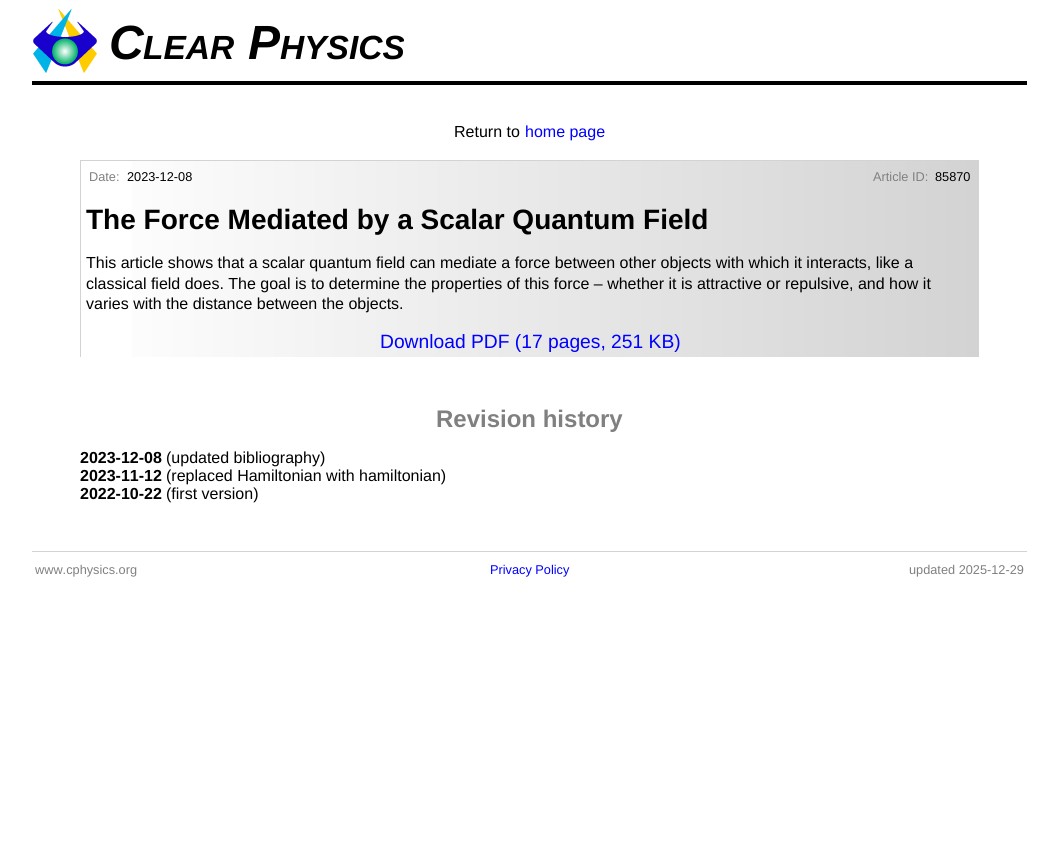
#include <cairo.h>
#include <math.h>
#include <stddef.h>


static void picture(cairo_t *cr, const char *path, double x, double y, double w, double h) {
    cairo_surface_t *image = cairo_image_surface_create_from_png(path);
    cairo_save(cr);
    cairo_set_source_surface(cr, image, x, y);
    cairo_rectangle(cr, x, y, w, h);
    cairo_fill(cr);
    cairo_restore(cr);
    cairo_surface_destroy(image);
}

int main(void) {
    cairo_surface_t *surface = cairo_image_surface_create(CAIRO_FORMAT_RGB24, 1059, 865);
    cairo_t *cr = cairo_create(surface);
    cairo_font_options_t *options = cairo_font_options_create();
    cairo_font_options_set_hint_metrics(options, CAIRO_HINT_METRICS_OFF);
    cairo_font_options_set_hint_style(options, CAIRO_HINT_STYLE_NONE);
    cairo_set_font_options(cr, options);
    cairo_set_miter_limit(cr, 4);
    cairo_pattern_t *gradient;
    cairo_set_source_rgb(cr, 1, 1, 1);
    cairo_paint(cr);
    picture(cr, "img1.png", 33, 9, 64, 64);
    cairo_select_font_face(cr, "Liberation Sans", CAIRO_FONT_SLANT_ITALIC, CAIRO_FONT_WEIGHT_BOLD);
    cairo_set_font_size(cr, 48);
    cairo_set_source_rgb(cr, 0, 0, 0);
    cairo_move_to(cr, 109, 59);
    cairo_show_text(cr, "C");
    cairo_set_font_size(cr, 33.5);
    cairo_move_to(cr, 143, 59);
    cairo_show_text(cr, "LEAR");
    cairo_set_font_size(cr, 48);
    cairo_move_to(cr, 248, 59);
    cairo_show_text(cr, "P");
    cairo_set_font_size(cr, 33.5);
    cairo_move_to(cr, 280, 59);
    cairo_show_text(cr, "HYSICS");
    cairo_rectangle(cr, 32, 81, 995, 4);
    cairo_fill(cr);
    cairo_select_font_face(cr, "Liberation Sans", CAIRO_FONT_SLANT_NORMAL, CAIRO_FONT_WEIGHT_NORMAL);
    cairo_set_font_size(cr, 16);
    cairo_move_to(cr, 454, 137);
    cairo_show_text(cr, "Return to");
    cairo_set_source_rgb(cr, 0, 0, 1);
    cairo_move_to(cr, 525, 137);
    cairo_show_text(cr, "home page");
    gradient = cairo_pattern_create_linear(81, 259, -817, 259);
    cairo_pattern_add_color_stop_rgba(gradient, 0, 0.827, 0.827, 0.827, 1);
    cairo_pattern_add_color_stop_rgba(gradient, 1, 1, 1, 1, 1);
    cairo_set_source(cr, gradient);
    cairo_pattern_destroy(gradient);
    cairo_rectangle(cr, 80, 160, 1, 197);
    cairo_fill(cr);
    gradient = cairo_pattern_create_linear(979, 259, 81, 259);
    cairo_pattern_add_color_stop_rgba(gradient, 0, 0.827, 0.827, 0.827, 1);
    cairo_pattern_add_color_stop_rgba(gradient, 1, 1, 1, 1, 1);
    cairo_set_source(cr, gradient);
    cairo_pattern_destroy(gradient);
    cairo_rectangle(cr, 132, 161, 847, 196);
    cairo_fill(cr);
    cairo_set_source_rgb(cr, 0.827, 0.827, 0.827);
    cairo_rectangle(cr, 80, 160, 899, 1);
    cairo_fill(cr);
    cairo_set_font_size(cr, 12.75);
    cairo_set_source_rgb(cr, 0.502, 0.502, 0.502);
    cairo_move_to(cr, 89, 181);
    cairo_show_text(cr, "Date:");
    cairo_set_source_rgb(cr, 0, 0, 0);
    cairo_move_to(cr, 127, 181);
    cairo_show_text(cr, "2023-12-08");
    cairo_set_source_rgb(cr, 0.502, 0.502, 0.502);
    cairo_move_to(cr, 873, 181);
    cairo_show_text(cr, "Article ID:");
    cairo_set_source_rgb(cr, 0, 0, 0);
    cairo_move_to(cr, 935, 181);
    cairo_show_text(cr, "85870");
    cairo_select_font_face(cr, "Liberation Sans", CAIRO_FONT_SLANT_NORMAL, CAIRO_FONT_WEIGHT_BOLD);
    cairo_set_font_size(cr, 28);
    cairo_move_to(cr, 86, 229);
    cairo_show_text(cr, "The Force Mediated by a Scalar Quantum Field");
    cairo_select_font_face(cr, "Liberation Sans", CAIRO_FONT_SLANT_NORMAL, CAIRO_FONT_WEIGHT_NORMAL);
    cairo_set_font_size(cr, 16);
    cairo_move_to(cr, 86, 268);
    cairo_show_text(cr, "This article shows that a scalar quantum field can mediate a force between other objects with which it interacts, like a");
    cairo_move_to(cr, 86, 289);
    cairo_show_text(cr, "classical field does. The goal is to determine the properties of this force – whether it is attractive or repulsive, and how it");
    cairo_move_to(cr, 86, 309);
    cairo_show_text(cr, "varies with the distance between the objects.");
    cairo_set_font_size(cr, 19.25);
    cairo_set_source_rgb(cr, 0, 0, 1);
    cairo_move_to(cr, 380, 348);
    cairo_show_text(cr, "Download PDF (17 pages, 251 KB)");
    cairo_select_font_face(cr, "Liberation Sans", CAIRO_FONT_SLANT_NORMAL, CAIRO_FONT_WEIGHT_BOLD);
    cairo_set_font_size(cr, 24);
    cairo_set_source_rgb(cr, 0.502, 0.502, 0.502);
    cairo_move_to(cr, 436, 427);
    cairo_show_text(cr, "Revision history");
    cairo_set_font_size(cr, 16);
    cairo_set_source_rgb(cr, 0, 0, 0);
    cairo_move_to(cr, 80, 463);
    cairo_show_text(cr, "2023-12-08");
    cairo_select_font_face(cr, "Liberation Sans", CAIRO_FONT_SLANT_NORMAL, CAIRO_FONT_WEIGHT_NORMAL);
    cairo_move_to(cr, 166, 463);
    cairo_show_text(cr, "(updated bibliography)");
    cairo_select_font_face(cr, "Liberation Sans", CAIRO_FONT_SLANT_NORMAL, CAIRO_FONT_WEIGHT_BOLD);
    cairo_move_to(cr, 80, 481);
    cairo_show_text(cr, "2023-11-12");
    cairo_select_font_face(cr, "Liberation Sans", CAIRO_FONT_SLANT_NORMAL, CAIRO_FONT_WEIGHT_NORMAL);
    cairo_move_to(cr, 166, 481);
    cairo_show_text(cr, "(replaced Hamiltonian with hamiltonian)");
    cairo_select_font_face(cr, "Liberation Sans", CAIRO_FONT_SLANT_NORMAL, CAIRO_FONT_WEIGHT_BOLD);
    cairo_move_to(cr, 80, 499);
    cairo_show_text(cr, "2022-10-22");
    cairo_select_font_face(cr, "Liberation Sans", CAIRO_FONT_SLANT_NORMAL, CAIRO_FONT_WEIGHT_NORMAL);
    cairo_move_to(cr, 166, 499);
    cairo_show_text(cr, "(first version)");
    cairo_set_source_rgb(cr, 0.827, 0.827, 0.827);
    cairo_rectangle(cr, 32, 551, 995, 1);
    cairo_fill(cr);
    cairo_set_font_size(cr, 12.75);
    cairo_set_source_rgb(cr, 0.502, 0.502, 0.502);
    cairo_move_to(cr, 35, 574);
    cairo_show_text(cr, "www.cphysics.org");
    cairo_set_source_rgb(cr, 0, 0, 1);
    cairo_move_to(cr, 490, 574);
    cairo_show_text(cr, "Privacy Policy");
    cairo_set_source_rgb(cr, 0.502, 0.502, 0.502);
    cairo_move_to(cr, 909, 574);
    cairo_show_text(cr, "updated 2025-12-29");
    cairo_surface_write_to_png(surface, "page.png");
    cairo_font_options_destroy(options);
    cairo_destroy(cr);
    cairo_surface_destroy(surface);
    return 0;
}
